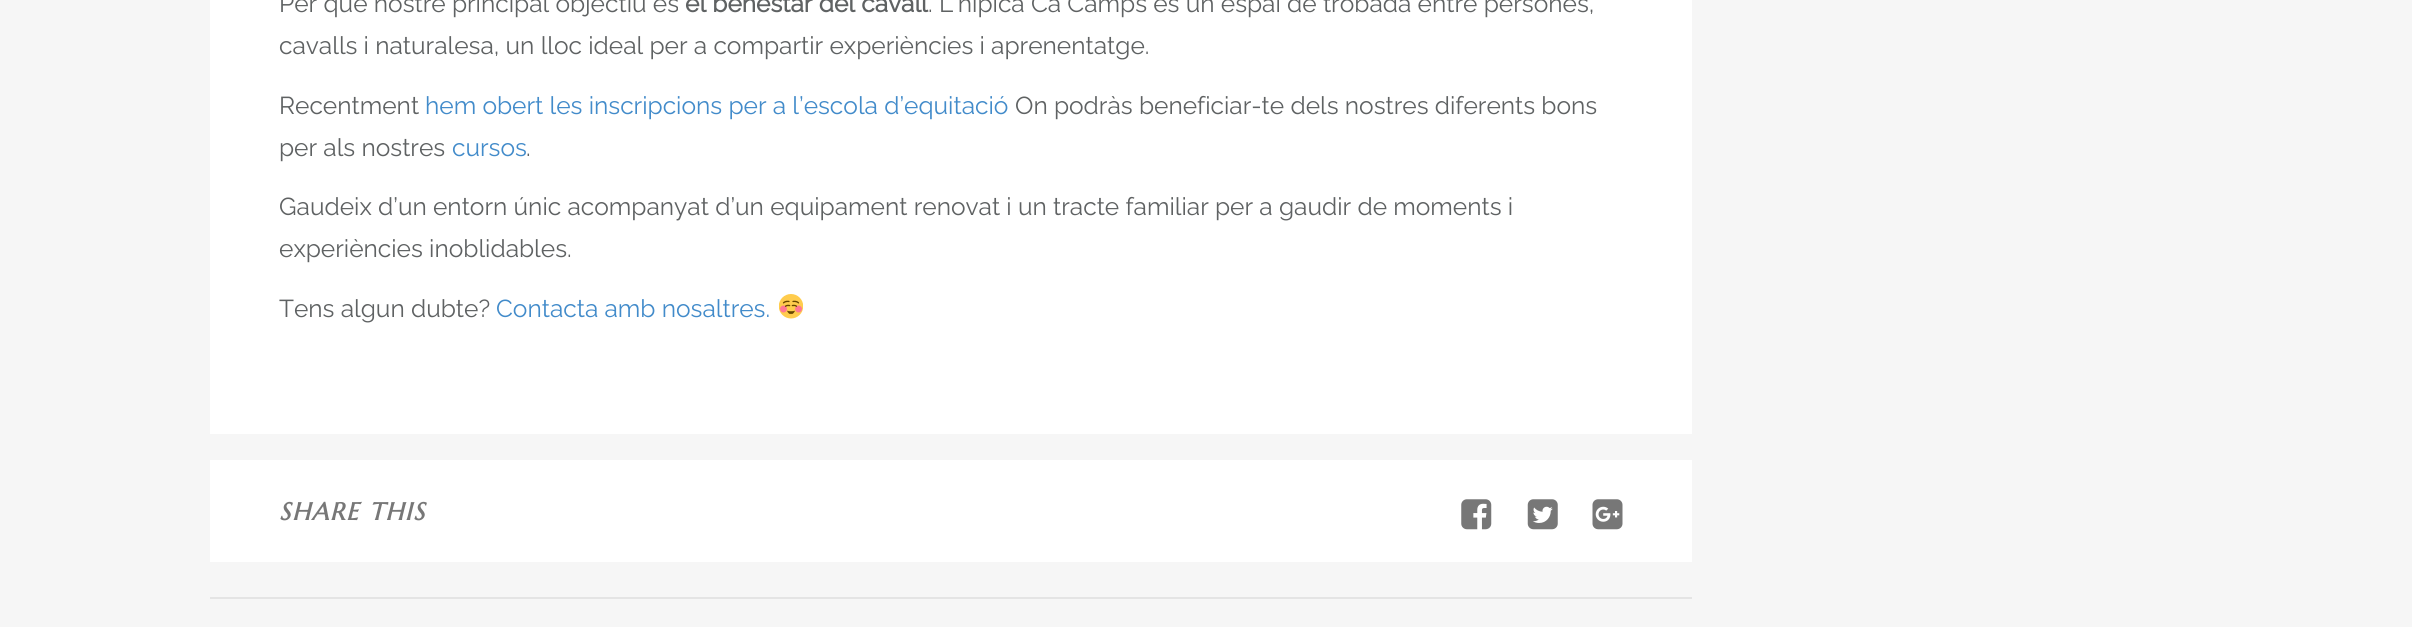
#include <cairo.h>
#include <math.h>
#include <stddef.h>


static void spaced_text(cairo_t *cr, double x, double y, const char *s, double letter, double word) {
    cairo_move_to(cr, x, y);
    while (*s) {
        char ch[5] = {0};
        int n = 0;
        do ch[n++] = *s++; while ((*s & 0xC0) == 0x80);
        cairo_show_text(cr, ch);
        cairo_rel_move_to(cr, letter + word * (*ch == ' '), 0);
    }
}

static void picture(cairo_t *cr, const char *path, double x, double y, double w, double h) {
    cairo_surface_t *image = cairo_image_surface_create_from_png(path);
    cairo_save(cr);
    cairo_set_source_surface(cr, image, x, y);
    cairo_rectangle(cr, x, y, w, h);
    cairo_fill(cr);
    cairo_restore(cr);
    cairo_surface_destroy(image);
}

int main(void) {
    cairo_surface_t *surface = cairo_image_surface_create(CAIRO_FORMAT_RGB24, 2412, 627);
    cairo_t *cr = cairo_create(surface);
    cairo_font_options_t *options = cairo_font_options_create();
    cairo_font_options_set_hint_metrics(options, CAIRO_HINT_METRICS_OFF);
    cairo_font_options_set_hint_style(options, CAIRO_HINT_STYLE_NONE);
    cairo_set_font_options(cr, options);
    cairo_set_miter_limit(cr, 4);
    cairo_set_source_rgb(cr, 0.961, 0.961, 0.961);
    cairo_paint(cr);
    cairo_set_source_rgb(cr, 1, 1, 1);
    cairo_rectangle(cr, 210, 0, 1482, 434);
    cairo_fill(cr);
    cairo_select_font_face(cr, "Raleway Thin", CAIRO_FONT_SLANT_NORMAL, CAIRO_FONT_WEIGHT_NORMAL);
    cairo_set_font_size(cr, 24.5);
    cairo_set_source_rgb(cr, 0.373, 0.384, 0.388);
    cairo_move_to(cr, 279, 12);
    cairo_show_text(cr, "Per què nostre principal objectiu és");
    cairo_select_font_face(cr, "Raleway", CAIRO_FONT_SLANT_NORMAL, CAIRO_FONT_WEIGHT_BOLD);
    cairo_move_to(cr, 685, 12);
    cairo_show_text(cr, "el benestar del cavall");
    cairo_select_font_face(cr, "Raleway Thin", CAIRO_FONT_SLANT_NORMAL, CAIRO_FONT_WEIGHT_NORMAL);
    cairo_move_to(cr, 928, 12);
    cairo_show_text(cr, ". L’hípica Ca Camps és un espai de trobada entre persones,");
    cairo_move_to(cr, 279, 54);
    cairo_show_text(cr, "cavalls i naturalesa, un lloc ideal per a compartir experiències i aprenentatge.");
    cairo_move_to(cr, 279, 114);
    cairo_show_text(cr, "Recentment");
    cairo_set_source_rgb(cr, 0.259, 0.545, 0.792);
    cairo_move_to(cr, 425, 114);
    cairo_show_text(cr, "hem obert les inscripcions per a l’escola d’equitació");
    cairo_set_source_rgb(cr, 0.373, 0.384, 0.388);
    cairo_move_to(cr, 1015, 114);
    cairo_show_text(cr, "On podràs beneficiar-te dels nostres diferents bons");
    cairo_move_to(cr, 279, 156);
    cairo_show_text(cr, "per als nostres");
    cairo_set_source_rgb(cr, 0.259, 0.545, 0.792);
    cairo_move_to(cr, 452, 156);
    cairo_show_text(cr, "cursos");
    cairo_set_source_rgb(cr, 0.373, 0.384, 0.388);
    cairo_move_to(cr, 526, 156);
    cairo_show_text(cr, ".");
    cairo_move_to(cr, 279, 215);
    cairo_show_text(cr, "Gaudeix d’un entorn únic acompanyat d’un equipament renovat i un tracte familiar per a gaudir de moments i");
    cairo_move_to(cr, 279, 257);
    cairo_show_text(cr, "experiències inoblidables.");
    cairo_move_to(cr, 279, 317);
    cairo_show_text(cr, "Tens algun dubte?");
    cairo_set_source_rgb(cr, 0.259, 0.545, 0.792);
    cairo_move_to(cr, 496, 317);
    cairo_show_text(cr, "Contacta amb nosaltres.");
    picture(cr, "img1.png", 779, 294, 24, 25);
    cairo_set_source_rgb(cr, 1, 1, 1);
    cairo_rectangle(cr, 210, 460, 1482, 102);
    cairo_fill(cr);
    cairo_select_font_face(cr, "Marcellus", CAIRO_FONT_SLANT_ITALIC, CAIRO_FONT_WEIGHT_BOLD);
    cairo_set_source_rgb(cr, 0.467, 0.467, 0.467);
    spaced_text(cr, 279, 520, "SHARE THIS", 1.75, 0);
    picture(cr, "img2.png", 1461, 499, 31, 31);
    picture(cr, "img3.png", 1527, 499, 31, 31);
    picture(cr, "img4.png", 1592, 499, 31, 31);
    cairo_set_source_rgb(cr, 0.894, 0.894, 0.894);
    cairo_rectangle(cr, 210, 597, 1482, 2);
    cairo_fill(cr);
    cairo_surface_write_to_png(surface, "page.png");
    cairo_font_options_destroy(options);
    cairo_destroy(cr);
    cairo_surface_destroy(surface);
    return 0;
}
